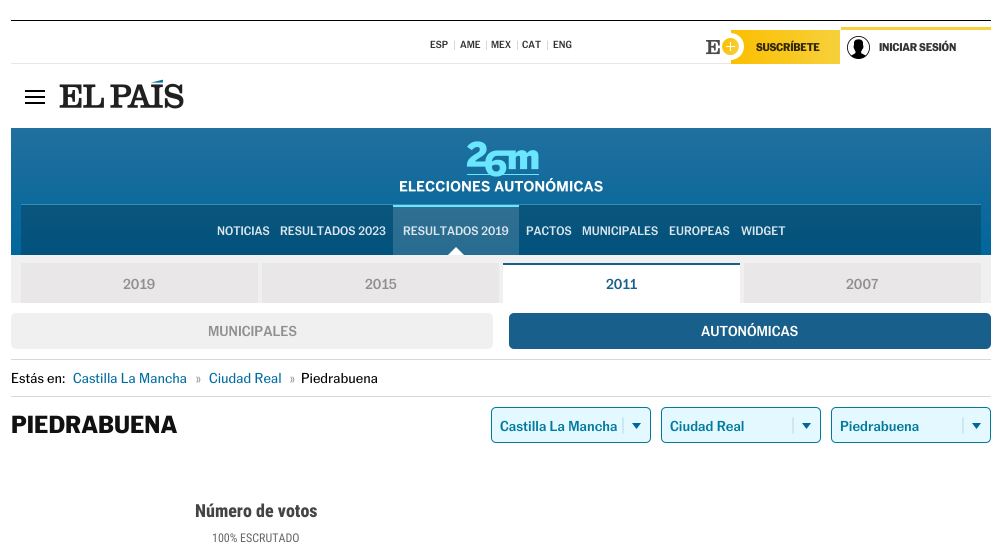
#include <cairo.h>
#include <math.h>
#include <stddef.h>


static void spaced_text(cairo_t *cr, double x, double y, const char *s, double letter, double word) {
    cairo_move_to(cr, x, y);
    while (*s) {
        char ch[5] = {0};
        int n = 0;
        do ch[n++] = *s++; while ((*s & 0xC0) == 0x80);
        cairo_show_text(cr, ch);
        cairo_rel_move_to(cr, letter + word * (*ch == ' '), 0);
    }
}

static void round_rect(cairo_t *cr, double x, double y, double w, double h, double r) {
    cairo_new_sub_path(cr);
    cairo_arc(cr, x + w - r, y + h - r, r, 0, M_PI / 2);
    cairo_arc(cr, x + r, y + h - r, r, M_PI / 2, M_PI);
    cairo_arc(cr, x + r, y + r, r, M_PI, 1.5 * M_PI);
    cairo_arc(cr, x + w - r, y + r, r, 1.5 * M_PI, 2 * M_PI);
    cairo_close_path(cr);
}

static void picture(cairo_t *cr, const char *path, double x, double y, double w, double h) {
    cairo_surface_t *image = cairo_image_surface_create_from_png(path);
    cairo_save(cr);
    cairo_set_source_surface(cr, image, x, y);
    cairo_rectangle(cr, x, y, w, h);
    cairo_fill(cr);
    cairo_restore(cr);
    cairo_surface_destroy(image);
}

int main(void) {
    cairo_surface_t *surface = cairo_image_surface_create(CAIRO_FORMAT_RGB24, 1002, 559);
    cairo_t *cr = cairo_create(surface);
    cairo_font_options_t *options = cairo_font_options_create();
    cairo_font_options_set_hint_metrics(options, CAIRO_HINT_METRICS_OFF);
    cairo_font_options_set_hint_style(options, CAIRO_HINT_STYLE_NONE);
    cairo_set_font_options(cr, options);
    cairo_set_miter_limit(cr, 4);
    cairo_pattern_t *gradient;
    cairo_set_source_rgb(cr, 1, 1, 1);
    cairo_paint(cr);
    cairo_set_source_rgb(cr, 0, 0, 0);
    cairo_rectangle(cr, 11, 20, 980, 1);
    cairo_fill(cr);
    cairo_set_source_rgb(cr, 0.91, 0.91, 0.91);
    cairo_rectangle(cr, 11, 63, 720, 1);
    cairo_fill(cr);
    cairo_select_font_face(cr, "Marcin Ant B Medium", CAIRO_FONT_SLANT_NORMAL, CAIRO_FONT_WEIGHT_NORMAL);
    cairo_set_font_size(cr, 10);
    cairo_set_source_rgb(cr, 0.2, 0.2, 0.2);
    cairo_move_to(cr, 430, 48);
    cairo_show_text(cr, "ESP");
    cairo_select_font_face(cr, "Marcin Ant B", CAIRO_FONT_SLANT_NORMAL, CAIRO_FONT_WEIGHT_NORMAL);
    cairo_set_source_rgb(cr, 0.788, 0.788, 0.788);
    cairo_move_to(cr, 453, 48);
    cairo_show_text(cr, "|");
    cairo_select_font_face(cr, "Marcin Ant B Medium", CAIRO_FONT_SLANT_NORMAL, CAIRO_FONT_WEIGHT_NORMAL);
    cairo_set_source_rgb(cr, 0.2, 0.2, 0.2);
    cairo_move_to(cr, 460, 48);
    cairo_show_text(cr, "AME");
    cairo_select_font_face(cr, "Marcin Ant B", CAIRO_FONT_SLANT_NORMAL, CAIRO_FONT_WEIGHT_NORMAL);
    cairo_set_source_rgb(cr, 0.788, 0.788, 0.788);
    cairo_move_to(cr, 485, 48);
    cairo_show_text(cr, "|");
    cairo_select_font_face(cr, "Marcin Ant B Medium", CAIRO_FONT_SLANT_NORMAL, CAIRO_FONT_WEIGHT_NORMAL);
    cairo_set_source_rgb(cr, 0.2, 0.2, 0.2);
    cairo_move_to(cr, 491, 48);
    cairo_show_text(cr, "MEX");
    cairo_select_font_face(cr, "Marcin Ant B", CAIRO_FONT_SLANT_NORMAL, CAIRO_FONT_WEIGHT_NORMAL);
    cairo_set_source_rgb(cr, 0.788, 0.788, 0.788);
    cairo_move_to(cr, 516, 48);
    cairo_show_text(cr, "|");
    cairo_select_font_face(cr, "Marcin Ant B Medium", CAIRO_FONT_SLANT_NORMAL, CAIRO_FONT_WEIGHT_NORMAL);
    cairo_set_source_rgb(cr, 0.2, 0.2, 0.2);
    cairo_move_to(cr, 522, 48);
    cairo_show_text(cr, "CAT");
    cairo_select_font_face(cr, "Marcin Ant B", CAIRO_FONT_SLANT_NORMAL, CAIRO_FONT_WEIGHT_NORMAL);
    cairo_set_source_rgb(cr, 0.788, 0.788, 0.788);
    cairo_move_to(cr, 546, 48);
    cairo_show_text(cr, "|");
    cairo_select_font_face(cr, "Marcin Ant B Medium", CAIRO_FONT_SLANT_NORMAL, CAIRO_FONT_WEIGHT_NORMAL);
    cairo_set_source_rgb(cr, 0.2, 0.2, 0.2);
    cairo_move_to(cr, 553, 48);
    cairo_show_text(cr, "ENG");
    gradient = cairo_pattern_create_linear(840, 47, 731, 47);
    cairo_pattern_add_color_stop_rgba(gradient, 0, 0.965, 0.816, 0.231, 1);
    cairo_pattern_add_color_stop_rgba(gradient, 1, 0.988, 0.749, 0, 1);
    cairo_set_source(cr, gradient);
    cairo_pattern_destroy(gradient);
    cairo_rectangle(cr, 731, 30, 109, 34);
    cairo_fill(cr);
    picture(cr, "img1.png", 706, 33, 38, 27);
    cairo_select_font_face(cr, "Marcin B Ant", CAIRO_FONT_SLANT_NORMAL, CAIRO_FONT_WEIGHT_BOLD);
    cairo_set_font_size(cr, 11);
    cairo_set_source_rgb(cr, 0.196, 0.157, 0.024);
    spaced_text(cr, 756, 51, "SUSCRÍBETE", -0.25, 0);
    picture(cr, "img2.png", 847, 36, 23, 23);
    cairo_set_source_rgb(cr, 0.965, 0.816, 0.231);
    cairo_rectangle(cr, 841, 27, 150, 3);
    cairo_fill(cr);
    cairo_set_source_rgb(cr, 0.2, 0.2, 0.2);
    spaced_text(cr, 879, 51, "INICIAR SESIÓN", -0.25, 0);
    cairo_set_source_rgb(cr, 0, 0, 0);
    cairo_rectangle(cr, 25, 90, 20, 2);
    cairo_fill(cr);
    cairo_rectangle(cr, 25, 96, 20, 2);
    cairo_fill(cr);
    cairo_rectangle(cr, 25, 102, 20, 2);
    cairo_fill(cr);
    picture(cr, "img3.png", 59, 79, 125, 30);
    gradient = cairo_pattern_create_linear(501, 128, 501, 255);
    cairo_pattern_add_color_stop_rgba(gradient, 0, 0.129, 0.439, 0.62, 1);
    cairo_pattern_add_color_stop_rgba(gradient, 1, 0.004, 0.4, 0.612, 1);
    cairo_set_source(cr, gradient);
    cairo_pattern_destroy(gradient);
    cairo_rectangle(cr, 11, 128, 980, 127);
    cairo_fill(cr);
    gradient = cairo_pattern_create_linear(501, 128, 501, 255);
    cairo_pattern_add_color_stop_rgba(gradient, 0, 0.102, 0.353, 0.494, 1);
    cairo_pattern_add_color_stop_rgba(gradient, 1, 0.004, 0.322, 0.49, 1);
    cairo_set_source(cr, gradient);
    cairo_pattern_destroy(gradient);
    cairo_rectangle(cr, 21, 205, 960, 50);
    cairo_fill(cr);
    gradient = cairo_pattern_create_linear(501, 128, 501, 255);
    cairo_pattern_add_color_stop_rgba(gradient, 0, 0.235, 0.451, 0.569, 1);
    cairo_pattern_add_color_stop_rgba(gradient, 1, 0.153, 0.424, 0.569, 1);
    cairo_set_source(cr, gradient);
    cairo_pattern_destroy(gradient);
    cairo_rectangle(cr, 393, 207, 126, 48);
    cairo_fill(cr);
    picture(cr, "img4.png", 400, 141, 203, 51);
    cairo_set_source_rgb(cr, 0.192, 0.561, 0.694);
    cairo_rectangle(cr, 21, 204, 960, 1);
    cairo_fill(cr);
    cairo_select_font_face(cr, "Marcin Ant B Medium", CAIRO_FONT_SLANT_NORMAL, CAIRO_FONT_WEIGHT_NORMAL);
    cairo_set_font_size(cr, 12);
    cairo_set_source_rgb(cr, 0.855, 0.898, 0.922);
    cairo_move_to(cr, 217, 235);
    cairo_show_text(cr, "NOTICIAS");
    cairo_move_to(cr, 280, 235);
    cairo_show_text(cr, "RESULTADOS 2023");
    cairo_set_source_rgb(cr, 0.416, 0.906, 1);
    cairo_rectangle(cr, 393, 205, 126, 2);
    cairo_fill(cr);
    cairo_set_source_rgb(cr, 0.855, 0.898, 0.922);
    cairo_move_to(cr, 403, 235);
    cairo_show_text(cr, "RESULTADOS 2019");
    cairo_set_source_rgb(cr, 1, 1, 1);
    cairo_new_path(cr);
    cairo_move_to(cr, 464, 255);
    cairo_line_to(cr, 448, 255);
    cairo_line_to(cr, 456, 247);
    cairo_close_path(cr);
    cairo_fill(cr);
    cairo_set_source_rgb(cr, 0.855, 0.898, 0.922);
    cairo_move_to(cr, 526, 235);
    cairo_show_text(cr, "PACTOS");
    cairo_move_to(cr, 582, 235);
    cairo_show_text(cr, "MUNICIPALES");
    cairo_move_to(cr, 669, 235);
    cairo_show_text(cr, "EUROPEAS");
    cairo_move_to(cr, 741, 235);
    cairo_show_text(cr, "WIDGET");
    cairo_set_source_rgb(cr, 0.941, 0.941, 0.941);
    cairo_rectangle(cr, 11, 255, 980, 48);
    cairo_fill(cr);
    cairo_set_source_rgb(cr, 0.914, 0.906, 0.906);
    cairo_rectangle(cr, 21, 263, 237, 40);
    cairo_fill(cr);
    cairo_set_font_size(cr, 14);
    cairo_set_source_rgb(cr, 0.569, 0.565, 0.565);
    cairo_move_to(cr, 123, 289);
    cairo_show_text(cr, "2019");
    cairo_set_source_rgb(cr, 0.914, 0.906, 0.906);
    cairo_rectangle(cr, 262, 263, 237, 40);
    cairo_fill(cr);
    cairo_set_source_rgb(cr, 0.569, 0.565, 0.565);
    cairo_move_to(cr, 365, 289);
    cairo_show_text(cr, "2015");
    cairo_set_source_rgb(cr, 1, 1, 1);
    cairo_rectangle(cr, 503, 265, 237, 38);
    cairo_fill(cr);
    cairo_set_source_rgb(cr, 0.094, 0.373, 0.545);
    cairo_rectangle(cr, 503, 263, 237, 2);
    cairo_fill(cr);
    cairo_move_to(cr, 606, 289);
    cairo_show_text(cr, "2011");
    cairo_set_source_rgb(cr, 0.914, 0.906, 0.906);
    cairo_rectangle(cr, 744, 263, 237, 40);
    cairo_fill(cr);
    cairo_set_source_rgb(cr, 0.569, 0.565, 0.565);
    cairo_move_to(cr, 846, 289);
    cairo_show_text(cr, "2007");
    cairo_set_source_rgb(cr, 0.941, 0.941, 0.941);
    round_rect(cr, 11, 313, 482, 36, 5);
    cairo_fill(cr);
    cairo_set_source_rgb(cr, 0.569, 0.565, 0.565);
    cairo_move_to(cr, 208, 336);
    cairo_show_text(cr, "MUNICIPALES");
    cairo_set_source_rgb(cr, 0.094, 0.373, 0.545);
    round_rect(cr, 509, 313, 482, 36, 5);
    cairo_fill(cr);
    cairo_set_source_rgb(cr, 1, 1, 1);
    cairo_move_to(cr, 701, 336);
    cairo_show_text(cr, "AUTONÓMICAS");
    cairo_set_source_rgb(cr, 0.847, 0.847, 0.847);
    cairo_rectangle(cr, 11, 359, 980, 1);
    cairo_fill(cr);
    cairo_rectangle(cr, 11, 396, 980, 1);
    cairo_fill(cr);
    cairo_select_font_face(cr, "Marcin Ant B", CAIRO_FONT_SLANT_NORMAL, CAIRO_FONT_WEIGHT_NORMAL);
    cairo_set_source_rgb(cr, 0, 0, 0);
    cairo_move_to(cr, 11, 383);
    cairo_show_text(cr, "Estás en:");
    cairo_set_source_rgb(cr, 0.004, 0.424, 0.635);
    cairo_move_to(cr, 73, 383);
    cairo_show_text(cr, "Castilla La Mancha");
    cairo_set_source_rgb(cr, 0.6, 0.6, 0.6);
    cairo_move_to(cr, 196, 383);
    cairo_show_text(cr, "»");
    cairo_set_source_rgb(cr, 0.004, 0.424, 0.635);
    cairo_move_to(cr, 209, 383);
    cairo_show_text(cr, "Ciudad Real");
    cairo_set_source_rgb(cr, 0.6, 0.6, 0.6);
    cairo_move_to(cr, 290, 383);
    cairo_show_text(cr, "»");
    cairo_set_source_rgb(cr, 0, 0, 0);
    cairo_move_to(cr, 301, 383);
    cairo_show_text(cr, "Piedrabuena");
    cairo_select_font_face(cr, "Marcin B Ant", CAIRO_FONT_SLANT_NORMAL, CAIRO_FONT_WEIGHT_BOLD);
    cairo_set_font_size(cr, 24);
    cairo_set_source_rgb(cr, 0.067, 0.067, 0.067);
    cairo_move_to(cr, 11, 433);
    cairo_show_text(cr, "PIEDRABUENA");
    cairo_set_source_rgb(cr, 0.894, 0.969, 1);
    round_rect(cr, 491, 407, 160, 36, 5);
    cairo_fill(cr);
    cairo_new_path(cr);
    cairo_move_to(cr, 623, 418);
    cairo_line_to(cr, 623, 433);
    cairo_set_source_rgb(cr, 0.698, 0.843, 0.906);
    cairo_set_line_width(cr, 1);
    cairo_set_line_cap(cr, CAIRO_LINE_CAP_SQUARE);
    cairo_stroke(cr);
    cairo_set_source_rgb(cr, 0, 0.396, 0.608);
    cairo_set_fill_rule(cr, CAIRO_FILL_RULE_EVEN_ODD);
    cairo_new_path(cr);
    cairo_move_to(cr, 636.5, 429);
    cairo_line_to(cr, 641, 423);
    cairo_line_to(cr, 632, 423);
    cairo_close_path(cr);
    cairo_fill(cr);
    round_rect(cr, 491.5, 407.5, 159, 35, 4.5);
    cairo_set_source_rgb(cr, 0.004, 0.478, 0.612);
    cairo_set_line_cap(cr, CAIRO_LINE_CAP_BUTT);
    cairo_stroke(cr);
    cairo_select_font_face(cr, "Marcin Ant B Medium", CAIRO_FONT_SLANT_NORMAL, CAIRO_FONT_WEIGHT_NORMAL);
    cairo_set_font_size(cr, 14);
    cairo_move_to(cr, 500, 431);
    cairo_show_text(cr, "Castilla La Mancha");
    cairo_set_source_rgb(cr, 0.894, 0.969, 1);
    round_rect(cr, 661, 407, 160, 36, 5);
    cairo_fill(cr);
    cairo_new_path(cr);
    cairo_move_to(cr, 793, 418);
    cairo_line_to(cr, 793, 433);
    cairo_set_source_rgb(cr, 0.698, 0.843, 0.906);
    cairo_set_line_cap(cr, CAIRO_LINE_CAP_SQUARE);
    cairo_stroke(cr);
    cairo_set_source_rgb(cr, 0, 0.396, 0.608);
    cairo_new_path(cr);
    cairo_move_to(cr, 806.5, 429);
    cairo_line_to(cr, 811, 423);
    cairo_line_to(cr, 802, 423);
    cairo_close_path(cr);
    cairo_fill(cr);
    round_rect(cr, 661.5, 407.5, 159, 35, 4.5);
    cairo_set_source_rgb(cr, 0.004, 0.478, 0.612);
    cairo_set_line_cap(cr, CAIRO_LINE_CAP_BUTT);
    cairo_stroke(cr);
    cairo_move_to(cr, 670, 431);
    cairo_show_text(cr, "Ciudad Real");
    cairo_set_source_rgb(cr, 0.894, 0.969, 1);
    round_rect(cr, 831, 407, 160, 36, 5);
    cairo_fill(cr);
    cairo_new_path(cr);
    cairo_move_to(cr, 963, 418);
    cairo_line_to(cr, 963, 433);
    cairo_set_source_rgb(cr, 0.698, 0.843, 0.906);
    cairo_set_line_cap(cr, CAIRO_LINE_CAP_SQUARE);
    cairo_stroke(cr);
    cairo_set_source_rgb(cr, 0, 0.396, 0.608);
    cairo_new_path(cr);
    cairo_move_to(cr, 976.5, 429);
    cairo_line_to(cr, 981, 423);
    cairo_line_to(cr, 972, 423);
    cairo_close_path(cr);
    cairo_fill(cr);
    round_rect(cr, 831.5, 407.5, 159, 35, 4.5);
    cairo_set_source_rgb(cr, 0.004, 0.478, 0.612);
    cairo_set_line_cap(cr, CAIRO_LINE_CAP_BUTT);
    cairo_stroke(cr);
    cairo_move_to(cr, 840, 431);
    cairo_show_text(cr, "Piedrabuena");
    cairo_select_font_face(cr, "Roboto Condensed ExtraBold", CAIRO_FONT_SLANT_NORMAL, CAIRO_FONT_WEIGHT_NORMAL);
    cairo_set_font_size(cr, 18);
    cairo_set_source_rgb(cr, 0.267, 0.267, 0.267);
    cairo_move_to(cr, 195, 517);
    cairo_show_text(cr, "Número de votos");
    cairo_select_font_face(cr, "Roboto Condensed", CAIRO_FONT_SLANT_NORMAL, CAIRO_FONT_WEIGHT_NORMAL);
    cairo_set_font_size(cr, 12);
    cairo_set_source_rgb(cr, 0.4, 0.4, 0.4);
    cairo_move_to(cr, 212, 542);
    cairo_show_text(cr, "100% ESCRUTADO");
    cairo_surface_write_to_png(surface, "page.png");
    cairo_font_options_destroy(options);
    cairo_destroy(cr);
    cairo_surface_destroy(surface);
    return 0;
}
